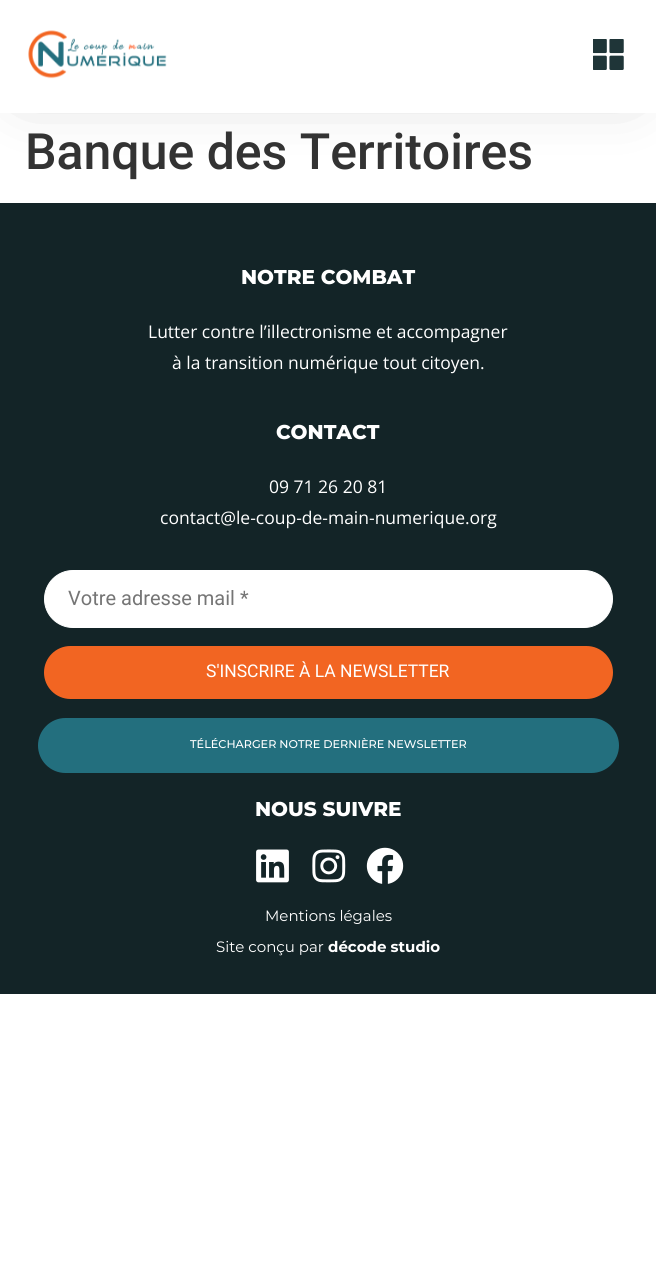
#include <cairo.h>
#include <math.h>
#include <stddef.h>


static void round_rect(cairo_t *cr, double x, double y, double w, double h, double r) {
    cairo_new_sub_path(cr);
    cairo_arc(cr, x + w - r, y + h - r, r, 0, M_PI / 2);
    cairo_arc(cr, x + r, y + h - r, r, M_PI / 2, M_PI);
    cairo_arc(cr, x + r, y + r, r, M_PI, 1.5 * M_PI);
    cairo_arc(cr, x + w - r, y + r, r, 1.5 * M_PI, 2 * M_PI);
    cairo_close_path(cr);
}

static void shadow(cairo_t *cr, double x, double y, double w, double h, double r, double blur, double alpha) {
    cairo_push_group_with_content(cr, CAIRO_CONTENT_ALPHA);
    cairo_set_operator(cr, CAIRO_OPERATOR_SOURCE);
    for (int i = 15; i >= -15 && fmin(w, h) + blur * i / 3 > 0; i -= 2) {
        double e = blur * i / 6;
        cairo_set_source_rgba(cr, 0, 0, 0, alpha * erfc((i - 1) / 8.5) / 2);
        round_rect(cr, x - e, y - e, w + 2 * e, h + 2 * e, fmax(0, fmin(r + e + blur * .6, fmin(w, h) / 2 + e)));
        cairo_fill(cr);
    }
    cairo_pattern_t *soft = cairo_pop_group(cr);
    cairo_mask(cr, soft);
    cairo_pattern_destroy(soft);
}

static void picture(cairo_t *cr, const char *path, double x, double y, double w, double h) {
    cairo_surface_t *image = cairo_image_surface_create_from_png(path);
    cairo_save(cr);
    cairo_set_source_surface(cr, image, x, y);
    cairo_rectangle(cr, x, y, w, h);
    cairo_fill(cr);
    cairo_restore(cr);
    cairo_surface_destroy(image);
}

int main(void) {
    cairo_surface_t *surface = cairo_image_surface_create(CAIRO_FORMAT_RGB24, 656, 1265);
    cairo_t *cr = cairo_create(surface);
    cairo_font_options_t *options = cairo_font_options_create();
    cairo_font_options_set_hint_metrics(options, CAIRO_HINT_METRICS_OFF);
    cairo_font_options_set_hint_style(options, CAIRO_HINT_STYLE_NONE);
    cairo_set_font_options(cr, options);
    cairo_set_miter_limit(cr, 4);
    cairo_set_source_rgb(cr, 1, 1, 1);
    cairo_paint(cr);
    cairo_set_source_rgb(cr, 0, 0, 0);
    shadow(cr, 25, 25, 606, 63, 0, 31, 0.25);
    cairo_set_source_rgb(cr, 1, 1, 1);
    cairo_rectangle(cr, 0, 0, 656, 113);
    cairo_fill(cr);
    picture(cr, "img1.png", 28, 30, 139, 49);
    picture(cr, "img2.png", 593, 39, 31, 31);
    cairo_select_font_face(cr, "Roboto Medium", CAIRO_FONT_SLANT_NORMAL, CAIRO_FONT_WEIGHT_NORMAL);
    cairo_set_font_size(cr, 50);
    cairo_set_source_rgb(cr, 0.2, 0.2, 0.2);
    cairo_move_to(cr, 25, 169);
    cairo_show_text(cr, "Banque des Territoires");
    cairo_set_source_rgb(cr, 0.078, 0.141, 0.153);
    cairo_rectangle(cr, 0, 203, 656, 791);
    cairo_fill(cr);
    cairo_select_font_face(cr, "Montserrat ExtraBold", CAIRO_FONT_SLANT_NORMAL, CAIRO_FONT_WEIGHT_NORMAL);
    cairo_set_font_size(cr, 20);
    cairo_set_source_rgb(cr, 1, 1, 1);
    cairo_move_to(cr, 241, 284);
    cairo_show_text(cr, "NOTRE COMBAT");
    cairo_select_font_face(cr, "Open Sans", CAIRO_FONT_SLANT_NORMAL, CAIRO_FONT_WEIGHT_NORMAL);
    cairo_set_font_size(cr, 17.5);
    cairo_move_to(cr, 148, 338);
    cairo_show_text(cr, "Lutter contre l’illectronisme et accompagner");
    cairo_move_to(cr, 172, 369);
    cairo_show_text(cr, "à la transition numérique tout citoyen.");
    cairo_select_font_face(cr, "Montserrat ExtraBold", CAIRO_FONT_SLANT_NORMAL, CAIRO_FONT_WEIGHT_NORMAL);
    cairo_set_font_size(cr, 20);
    cairo_move_to(cr, 276, 439);
    cairo_show_text(cr, "CONTACT");
    cairo_select_font_face(cr, "Open Sans", CAIRO_FONT_SLANT_NORMAL, CAIRO_FONT_WEIGHT_NORMAL);
    cairo_set_font_size(cr, 17.5);
    cairo_move_to(cr, 269, 493);
    cairo_show_text(cr, "09 71 26 20 81");
    cairo_move_to(cr, 160, 524);
    cairo_show_text(cr, "contact@le-coup-de-main-numerique.org");
    round_rect(cr, 44.5, 570.5, 568, 57, 28.5);
    cairo_fill_preserve(cr);
    cairo_set_line_width(cr, 1);
    cairo_stroke(cr);
    cairo_select_font_face(cr, "Roboto", CAIRO_FONT_SLANT_NORMAL, CAIRO_FONT_WEIGHT_NORMAL);
    cairo_set_font_size(cr, 20);
    cairo_set_source_rgb(cr, 0.459, 0.459, 0.459);
    cairo_move_to(cr, 68, 605);
    cairo_show_text(cr, "Votre adresse mail *");
    cairo_set_source_rgb(cr, 0.949, 0.396, 0.133);
    round_rect(cr, 44, 646, 569, 53, 26.5);
    cairo_fill(cr);
    cairo_set_font_size(cr, 17.5);
    cairo_set_source_rgb(cr, 1, 1, 1);
    cairo_move_to(cr, 206, 677);
    cairo_show_text(cr, "S'INSCRIRE À LA NEWSLETTER");
    cairo_set_source_rgb(cr, 0.137, 0.435, 0.494);
    round_rect(cr, 38, 718, 581, 55, 27.5);
    cairo_fill(cr);
    cairo_select_font_face(cr, "Montserrat Medium", CAIRO_FONT_SLANT_NORMAL, CAIRO_FONT_WEIGHT_NORMAL);
    cairo_set_font_size(cr, 11.25);
    cairo_set_source_rgb(cr, 1, 1, 1);
    cairo_move_to(cr, 190, 748);
    cairo_show_text(cr, "TÉLÉCHARGER NOTRE DERNIÈRE NEWSLETTER");
    cairo_select_font_face(cr, "Montserrat ExtraBold", CAIRO_FONT_SLANT_NORMAL, CAIRO_FONT_WEIGHT_NORMAL);
    cairo_set_font_size(cr, 20);
    cairo_move_to(cr, 255, 816);
    cairo_show_text(cr, "NOUS SUIVRE");
    picture(cr, "img3.png", 256, 849, 33, 34);
    picture(cr, "img4.png", 312, 849, 34, 34);
    picture(cr, "img5.png", 366, 847, 38, 37);
    cairo_select_font_face(cr, "Montserrat", CAIRO_FONT_SLANT_NORMAL, CAIRO_FONT_WEIGHT_NORMAL);
    cairo_set_font_size(cr, 15);
    cairo_move_to(cr, 265, 921);
    cairo_show_text(cr, "Mentions légales");
    cairo_move_to(cr, 216, 952);
    cairo_show_text(cr, "Site conçu par");
    cairo_select_font_face(cr, "Montserrat", CAIRO_FONT_SLANT_NORMAL, CAIRO_FONT_WEIGHT_BOLD);
    cairo_move_to(cr, 328, 952);
    cairo_show_text(cr, "décode studio");
    cairo_surface_write_to_png(surface, "page.png");
    cairo_font_options_destroy(options);
    cairo_destroy(cr);
    cairo_surface_destroy(surface);
    return 0;
}
